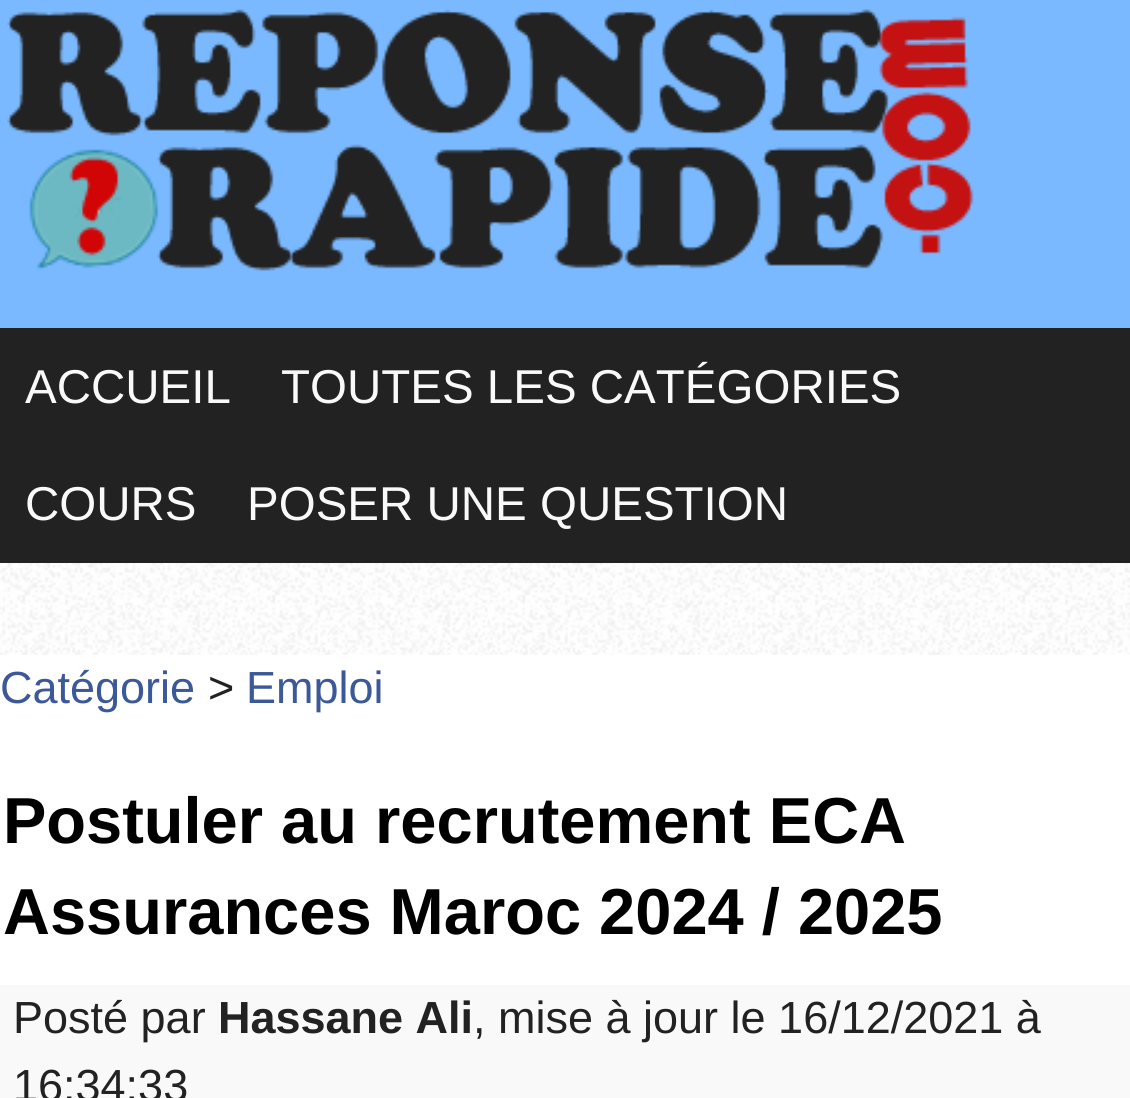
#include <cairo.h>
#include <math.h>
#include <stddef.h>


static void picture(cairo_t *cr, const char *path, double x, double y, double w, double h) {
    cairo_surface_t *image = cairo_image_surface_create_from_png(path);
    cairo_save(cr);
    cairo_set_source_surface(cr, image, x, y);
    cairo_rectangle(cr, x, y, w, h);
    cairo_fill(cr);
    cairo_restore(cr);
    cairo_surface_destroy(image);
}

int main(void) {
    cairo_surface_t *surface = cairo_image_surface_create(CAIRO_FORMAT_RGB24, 1130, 1098);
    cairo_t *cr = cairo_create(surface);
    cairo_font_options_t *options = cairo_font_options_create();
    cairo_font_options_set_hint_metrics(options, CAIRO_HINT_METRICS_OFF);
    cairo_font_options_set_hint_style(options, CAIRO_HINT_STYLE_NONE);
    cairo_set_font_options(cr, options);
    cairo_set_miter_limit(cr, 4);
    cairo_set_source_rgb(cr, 1, 1, 1);
    cairo_paint(cr);
    picture(cr, "img1.png", 0, 563, 1130, 92);
    cairo_set_source_rgb(cr, 0.478, 0.725, 1);
    cairo_rectangle(cr, 0, 0, 1130, 328);
    cairo_fill(cr);
    picture(cr, "img2.png", 7, 9, 967, 262);
    cairo_set_source_rgb(cr, 0.133, 0.133, 0.133);
    cairo_rectangle(cr, 0, 328, 1130, 235);
    cairo_fill(cr);
    cairo_select_font_face(cr, "Liberation Sans", CAIRO_FONT_SLANT_NORMAL, CAIRO_FONT_WEIGHT_NORMAL);
    cairo_set_font_size(cr, 47.5);
    cairo_set_source_rgb(cr, 0.976, 0.976, 0.976);
    cairo_move_to(cr, 25, 403);
    cairo_show_text(cr, "ACCUEIL");
    cairo_move_to(cr, 281, 403);
    cairo_show_text(cr, "TOUTES LES CATÉGORIES");
    cairo_move_to(cr, 25, 520);
    cairo_show_text(cr, "COURS");
    cairo_move_to(cr, 247, 520);
    cairo_show_text(cr, "POSER UNE QUESTION");
    cairo_set_font_size(cr, 45);
    cairo_set_source_rgb(cr, 0.231, 0.349, 0.596);
    cairo_move_to(cr, 0, 703);
    cairo_show_text(cr, "Catégorie");
    cairo_set_source_rgb(cr, 0.133, 0.133, 0.133);
    cairo_move_to(cr, 208, 703);
    cairo_show_text(cr, ">");
    cairo_set_source_rgb(cr, 0.231, 0.349, 0.596);
    cairo_move_to(cr, 246, 703);
    cairo_show_text(cr, "Emploi");
    cairo_select_font_face(cr, "Liberation Sans", CAIRO_FONT_SLANT_NORMAL, CAIRO_FONT_WEIGHT_BOLD);
    cairo_set_font_size(cr, 65);
    cairo_set_source_rgb(cr, 0, 0, 0);
    cairo_move_to(cr, 3, 843);
    cairo_show_text(cr, "Postuler au recrutement ECA");
    cairo_move_to(cr, 3, 934);
    cairo_show_text(cr, "Assurances Maroc 2024 / 2025");
    cairo_set_source_rgb(cr, 0.973, 0.973, 0.973);
    cairo_rectangle(cr, 0, 985, 1130, 113);
    cairo_fill(cr);
    cairo_select_font_face(cr, "Liberation Sans", CAIRO_FONT_SLANT_NORMAL, CAIRO_FONT_WEIGHT_NORMAL);
    cairo_set_font_size(cr, 45);
    cairo_set_source_rgb(cr, 0.133, 0.133, 0.133);
    cairo_move_to(cr, 13, 1033);
    cairo_show_text(cr, "Posté par");
    cairo_select_font_face(cr, "Liberation Sans", CAIRO_FONT_SLANT_NORMAL, CAIRO_FONT_WEIGHT_BOLD);
    cairo_move_to(cr, 218, 1033);
    cairo_show_text(cr, "Hassane Ali");
    cairo_select_font_face(cr, "Liberation Sans", CAIRO_FONT_SLANT_NORMAL, CAIRO_FONT_WEIGHT_NORMAL);
    cairo_move_to(cr, 473, 1033);
    cairo_show_text(cr, ", mise à jour le 16/12/2021 à");
    cairo_move_to(cr, 13, 1101);
    cairo_show_text(cr, "16:34:33");
    cairo_surface_write_to_png(surface, "page.png");
    cairo_font_options_destroy(options);
    cairo_destroy(cr);
    cairo_surface_destroy(surface);
    return 0;
}
